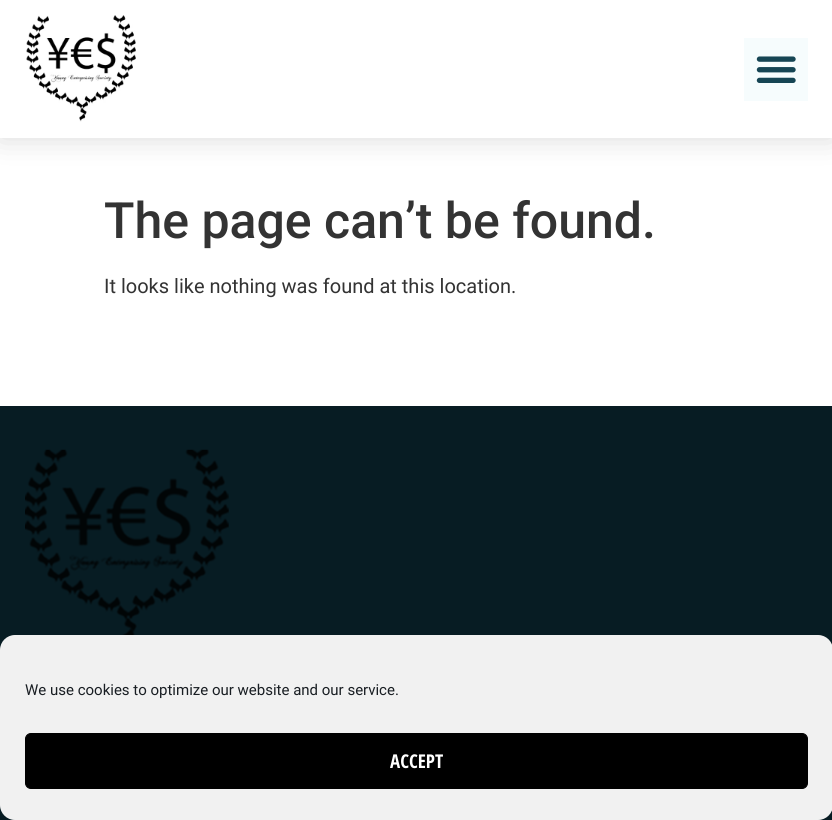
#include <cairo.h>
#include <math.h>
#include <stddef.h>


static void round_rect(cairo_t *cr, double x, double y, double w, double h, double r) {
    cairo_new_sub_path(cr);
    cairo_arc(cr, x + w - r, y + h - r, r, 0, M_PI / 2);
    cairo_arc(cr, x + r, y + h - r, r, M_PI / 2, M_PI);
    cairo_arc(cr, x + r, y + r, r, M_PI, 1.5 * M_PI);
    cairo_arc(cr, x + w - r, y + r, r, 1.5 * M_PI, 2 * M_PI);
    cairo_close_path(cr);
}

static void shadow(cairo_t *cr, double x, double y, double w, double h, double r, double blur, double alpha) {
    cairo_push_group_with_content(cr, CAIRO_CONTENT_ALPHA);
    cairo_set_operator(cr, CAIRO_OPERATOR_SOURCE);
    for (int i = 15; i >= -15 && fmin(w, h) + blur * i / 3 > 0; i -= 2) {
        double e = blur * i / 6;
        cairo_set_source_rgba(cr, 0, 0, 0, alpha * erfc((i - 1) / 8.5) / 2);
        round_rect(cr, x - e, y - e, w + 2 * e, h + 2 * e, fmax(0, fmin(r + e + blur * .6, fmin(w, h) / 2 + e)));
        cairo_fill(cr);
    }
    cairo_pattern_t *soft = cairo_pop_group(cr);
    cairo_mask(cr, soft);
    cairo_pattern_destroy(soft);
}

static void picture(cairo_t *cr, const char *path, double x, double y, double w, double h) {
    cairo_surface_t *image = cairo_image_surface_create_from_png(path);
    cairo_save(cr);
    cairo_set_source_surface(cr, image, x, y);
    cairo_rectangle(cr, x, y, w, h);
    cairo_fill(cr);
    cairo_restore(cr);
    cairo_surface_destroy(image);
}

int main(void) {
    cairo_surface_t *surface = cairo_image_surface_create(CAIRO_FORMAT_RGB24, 832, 820);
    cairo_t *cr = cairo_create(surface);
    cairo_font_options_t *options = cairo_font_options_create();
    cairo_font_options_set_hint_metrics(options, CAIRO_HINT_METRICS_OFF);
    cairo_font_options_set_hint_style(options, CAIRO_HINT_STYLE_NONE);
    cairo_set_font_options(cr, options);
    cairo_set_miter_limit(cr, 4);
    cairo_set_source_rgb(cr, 1, 1, 1);
    cairo_paint(cr);
    cairo_set_source_rgb(cr, 0, 0, 0);
    shadow(cr, 0, 0, 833, 138, 0, 15, 0.15);
    cairo_set_source_rgb(cr, 1, 1, 1);
    cairo_rectangle(cr, 0, 0, 832, 138);
    cairo_fill(cr);
    picture(cr, "img1.png", 26, 15, 110, 107);
    cairo_set_source_rgb(cr, 0.961, 0.988, 0.992);
    cairo_rectangle(cr, 744, 38, 64, 63);
    cairo_fill(cr);
    picture(cr, "img2.png", 756, 56, 40, 27);
    cairo_select_font_face(cr, "Roboto Medium", CAIRO_FONT_SLANT_NORMAL, CAIRO_FONT_WEIGHT_NORMAL);
    cairo_set_font_size(cr, 50);
    cairo_set_source_rgb(cr, 0.2, 0.2, 0.2);
    cairo_move_to(cr, 104, 238);
    cairo_show_text(cr, "The page can’t be found.");
    cairo_select_font_face(cr, "Roboto", CAIRO_FONT_SLANT_NORMAL, CAIRO_FONT_WEIGHT_NORMAL);
    cairo_set_font_size(cr, 20);
    cairo_move_to(cr, 104, 293);
    cairo_show_text(cr, "It looks like nothing was found at this location.");
    cairo_set_source_rgb(cr, 0.031, 0.11, 0.137);
    cairo_rectangle(cr, 0, 406, 832, 414);
    cairo_fill(cr);
    picture(cr, "img3.png", 25, 449, 204, 186);
    cairo_set_source_rgb(cr, 0.945, 0.945, 0.945);
    round_rect(cr, 0, 635, 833, 185, 15);
    cairo_fill(cr);
    cairo_set_font_size(cr, 15);
    cairo_set_source_rgb(cr, 0.098, 0.118, 0.137);
    cairo_move_to(cr, 25, 695);
    cairo_show_text(cr, "We use cookies to optimize our website and our service.");
    cairo_set_source_rgb(cr, 0, 0, 0);
    round_rect(cr, 25.5, 733.5, 782, 55, 5.5);
    cairo_fill_preserve(cr);
    cairo_set_line_width(cr, 1);
    cairo_stroke(cr);
    cairo_select_font_face(cr, "Open Sans Condensed", CAIRO_FONT_SLANT_NORMAL, CAIRO_FONT_WEIGHT_BOLD);
    cairo_set_font_size(cr, 19);
    cairo_set_source_rgb(cr, 1, 1, 1);
    cairo_move_to(cr, 390, 768);
    cairo_show_text(cr, "ACCEPT");
    cairo_surface_write_to_png(surface, "page.png");
    cairo_font_options_destroy(options);
    cairo_destroy(cr);
    cairo_surface_destroy(surface);
    return 0;
}
